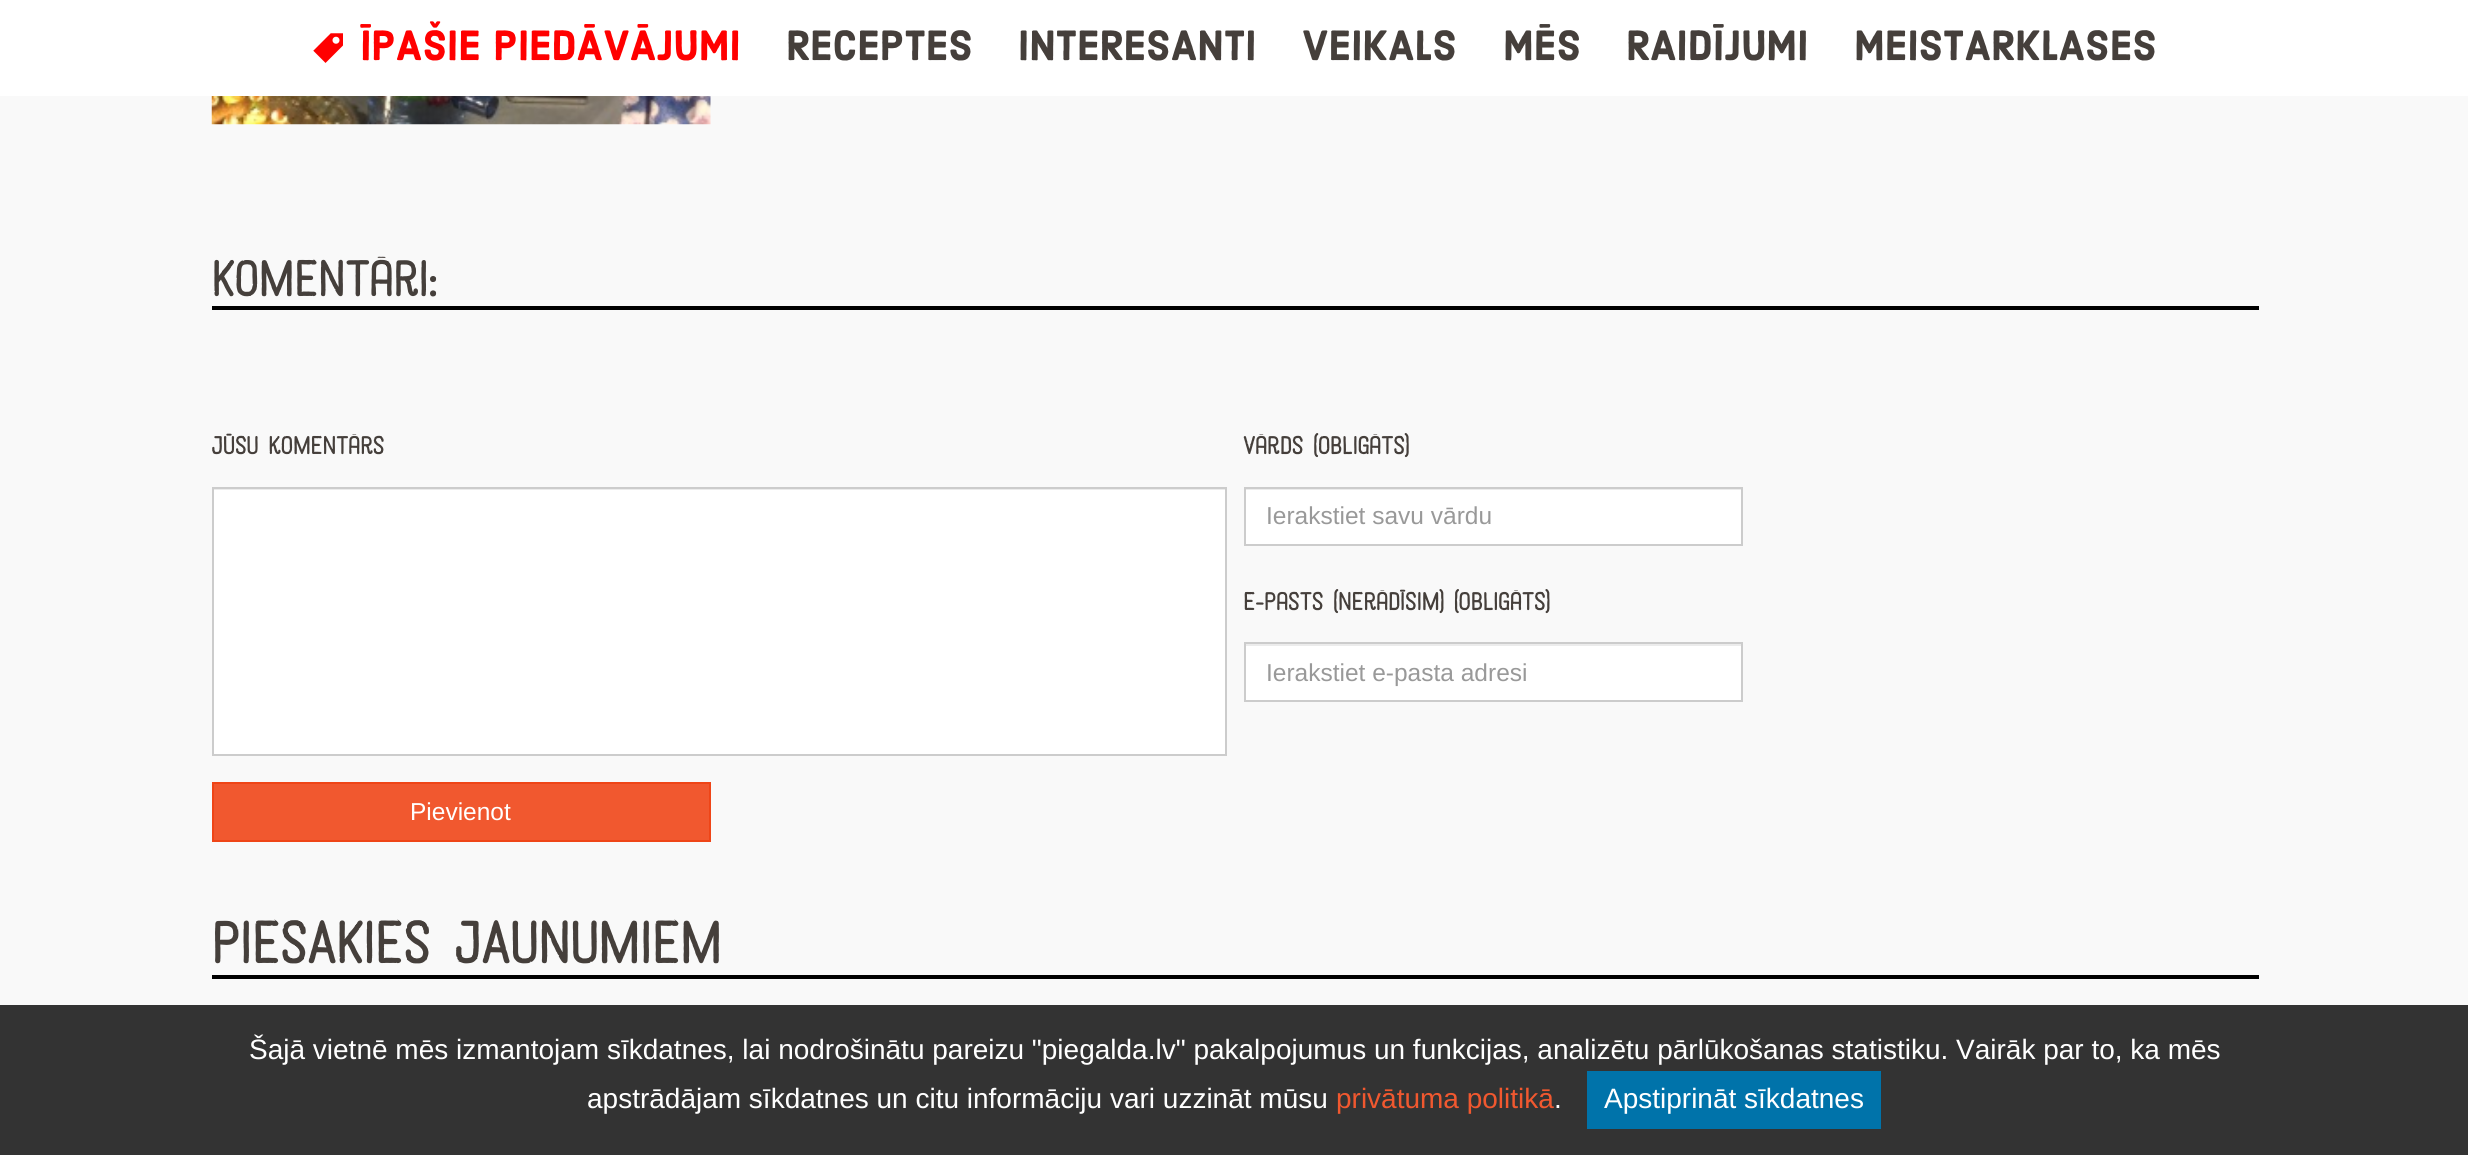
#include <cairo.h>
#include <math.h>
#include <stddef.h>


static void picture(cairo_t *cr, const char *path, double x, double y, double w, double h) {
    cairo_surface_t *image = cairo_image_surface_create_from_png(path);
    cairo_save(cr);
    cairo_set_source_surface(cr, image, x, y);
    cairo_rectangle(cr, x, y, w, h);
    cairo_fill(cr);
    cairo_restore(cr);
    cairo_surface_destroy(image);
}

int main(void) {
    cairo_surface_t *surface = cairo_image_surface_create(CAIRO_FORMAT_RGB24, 2468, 1155);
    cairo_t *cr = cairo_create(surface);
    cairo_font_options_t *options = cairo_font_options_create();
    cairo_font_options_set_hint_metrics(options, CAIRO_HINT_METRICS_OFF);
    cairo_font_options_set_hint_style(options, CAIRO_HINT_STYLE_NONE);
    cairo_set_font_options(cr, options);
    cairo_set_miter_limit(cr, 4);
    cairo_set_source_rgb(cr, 0.973, 0.973, 0.973);
    cairo_paint(cr);
    cairo_set_source_rgb(cr, 1, 1, 1);
    cairo_rectangle(cr, 0, 0, 2468, 96);
    cairo_fill(cr);
    picture(cr, "img1.png", 313, 33, 30, 30);
    cairo_select_font_face(cr, "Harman", CAIRO_FONT_SLANT_NORMAL, CAIRO_FONT_WEIGHT_NORMAL);
    cairo_set_font_size(cr, 42);
    cairo_set_source_rgb(cr, 1, 0, 0);
    cairo_move_to(cr, 360, 60);
    cairo_show_text(cr, "ĪPAŠIE PIEDĀVĀJUMI");
    cairo_set_source_rgb(cr, 0.271, 0.247, 0.231);
    cairo_move_to(cr, 786, 60);
    cairo_show_text(cr, "RECEPTES");
    cairo_move_to(cr, 1018, 60);
    cairo_show_text(cr, "INTERESANTI");
    cairo_move_to(cr, 1302, 60);
    cairo_show_text(cr, "VEIKALS");
    cairo_move_to(cr, 1503, 60);
    cairo_show_text(cr, "MĒS");
    cairo_move_to(cr, 1626, 60);
    cairo_show_text(cr, "RAIDĪJUMI");
    cairo_move_to(cr, 1854, 60);
    cairo_show_text(cr, "MEISTARKLASES");
    picture(cr, "img2.png", 211, 96, 500, 29);
    cairo_set_source_rgb(cr, 0, 0, 0);
    cairo_rectangle(cr, 212, 306, 2047, 4);
    cairo_fill(cr);
    cairo_select_font_face(cr, "Harman", CAIRO_FONT_SLANT_NORMAL, CAIRO_FONT_WEIGHT_BOLD);
    cairo_set_font_size(cr, 49);
    cairo_set_source_rgb(cr, 0.271, 0.247, 0.231);
    cairo_move_to(cr, 211, 296);
    cairo_show_text(cr, "Komentāri:");
    cairo_set_font_size(cr, 24.5);
    cairo_move_to(cr, 211, 454);
    cairo_show_text(cr, "Jūsu komentārs");
    cairo_set_source_rgb(cr, 1, 1, 1);
    cairo_rectangle(cr, 214, 490, 1011, 264);
    cairo_fill(cr);
    cairo_set_source_rgb(cr, 0.925, 0.925, 0.925);
    cairo_rectangle(cr, 214, 489, 1011, 1);
    cairo_fill(cr);
    cairo_rectangle(cr, 213, 488, 1013, 267);
    cairo_set_source_rgb(cr, 0.8, 0.8, 0.8);
    cairo_stroke(cr);
    cairo_set_source_rgb(cr, 0.271, 0.247, 0.231);
    cairo_move_to(cr, 1243, 454);
    cairo_show_text(cr, "Vārds (obligāts)");
    cairo_set_source_rgb(cr, 1, 1, 1);
    cairo_rectangle(cr, 1246, 490, 495, 54);
    cairo_fill(cr);
    cairo_set_source_rgb(cr, 0.925, 0.925, 0.925);
    cairo_rectangle(cr, 1246, 489, 495, 1);
    cairo_fill(cr);
    cairo_rectangle(cr, 1245, 488, 497, 57);
    cairo_set_source_rgb(cr, 0.8, 0.8, 0.8);
    cairo_stroke(cr);
    cairo_select_font_face(cr, "Liberation Sans", CAIRO_FONT_SLANT_NORMAL, CAIRO_FONT_WEIGHT_NORMAL);
    cairo_set_source_rgb(cr, 0.6, 0.6, 0.6);
    cairo_move_to(cr, 1266, 524);
    cairo_show_text(cr, "Ierakstiet savu vārdu");
    cairo_select_font_face(cr, "Harman", CAIRO_FONT_SLANT_NORMAL, CAIRO_FONT_WEIGHT_BOLD);
    cairo_set_source_rgb(cr, 0.271, 0.247, 0.231);
    cairo_move_to(cr, 1243, 610);
    cairo_show_text(cr, "E-pasts (nerādīsim) (obligāts)");
    cairo_set_source_rgb(cr, 1, 1, 1);
    cairo_rectangle(cr, 1246, 646, 495, 54);
    cairo_fill(cr);
    cairo_set_source_rgb(cr, 0.925, 0.925, 0.925);
    cairo_rectangle(cr, 1246, 644, 495, 2);
    cairo_fill(cr);
    cairo_rectangle(cr, 1245, 643, 497, 58);
    cairo_set_source_rgb(cr, 0.8, 0.8, 0.8);
    cairo_stroke(cr);
    cairo_select_font_face(cr, "Liberation Sans", CAIRO_FONT_SLANT_NORMAL, CAIRO_FONT_WEIGHT_NORMAL);
    cairo_set_source_rgb(cr, 0.6, 0.6, 0.6);
    cairo_move_to(cr, 1266, 681);
    cairo_show_text(cr, "Ierakstiet e-pasta adresi");
    cairo_set_source_rgb(cr, 0.945, 0.345, 0.184);
    cairo_rectangle(cr, 213, 783, 497, 58);
    cairo_fill_preserve(cr);
    cairo_set_source_rgb(cr, 0.937, 0.271, 0.09);
    cairo_stroke(cr);
    cairo_set_source_rgb(cr, 1, 1, 1);
    cairo_move_to(cr, 410, 820);
    cairo_show_text(cr, "Pievienot");
    cairo_set_source_rgb(cr, 0, 0, 0);
    cairo_rectangle(cr, 212, 975, 2047, 4);
    cairo_fill(cr);
    cairo_select_font_face(cr, "Harman", CAIRO_FONT_SLANT_NORMAL, CAIRO_FONT_WEIGHT_BOLD);
    cairo_set_font_size(cr, 57.75);
    cairo_set_source_rgb(cr, 0.271, 0.247, 0.231);
    cairo_move_to(cr, 211, 963);
    cairo_show_text(cr, "PIESAKIES JAUNUMIEM");
    cairo_set_source_rgb(cr, 0.2, 0.2, 0.2);
    cairo_rectangle(cr, 0, 1005, 2468, 150);
    cairo_fill(cr);
    cairo_select_font_face(cr, "Liberation Sans", CAIRO_FONT_SLANT_NORMAL, CAIRO_FONT_WEIGHT_NORMAL);
    cairo_set_font_size(cr, 28);
    cairo_set_source_rgb(cr, 1, 1, 1);
    cairo_move_to(cr, 249, 1059);
    cairo_show_text(cr, "Šajā vietnē mēs izmantojam sīkdatnes, lai nodrošinātu pareizu \"piegalda.lv\" pakalpojumus un funkcijas, analizētu pārlūkošanas statistiku. Vairāk par to, ka mēs");
    cairo_move_to(cr, 587, 1108);
    cairo_show_text(cr, "apstrādājam sīkdatnes un citu informāciju vari uzzināt mūsu");
    cairo_set_source_rgb(cr, 0.945, 0.345, 0.184);
    cairo_move_to(cr, 1336, 1108);
    cairo_show_text(cr, "privātuma politikā");
    cairo_set_source_rgb(cr, 1, 1, 1);
    cairo_move_to(cr, 1554, 1108);
    cairo_show_text(cr, ".");
    cairo_set_source_rgb(cr, 0, 0.451, 0.667);
    cairo_rectangle(cr, 1587, 1071, 294, 58);
    cairo_fill(cr);
    cairo_set_source_rgb(cr, 1, 1, 1);
    cairo_move_to(cr, 1604, 1108);
    cairo_show_text(cr, "Apstiprināt sīkdatnes");
    cairo_surface_write_to_png(surface, "page.png");
    cairo_font_options_destroy(options);
    cairo_destroy(cr);
    cairo_surface_destroy(surface);
    return 0;
}
